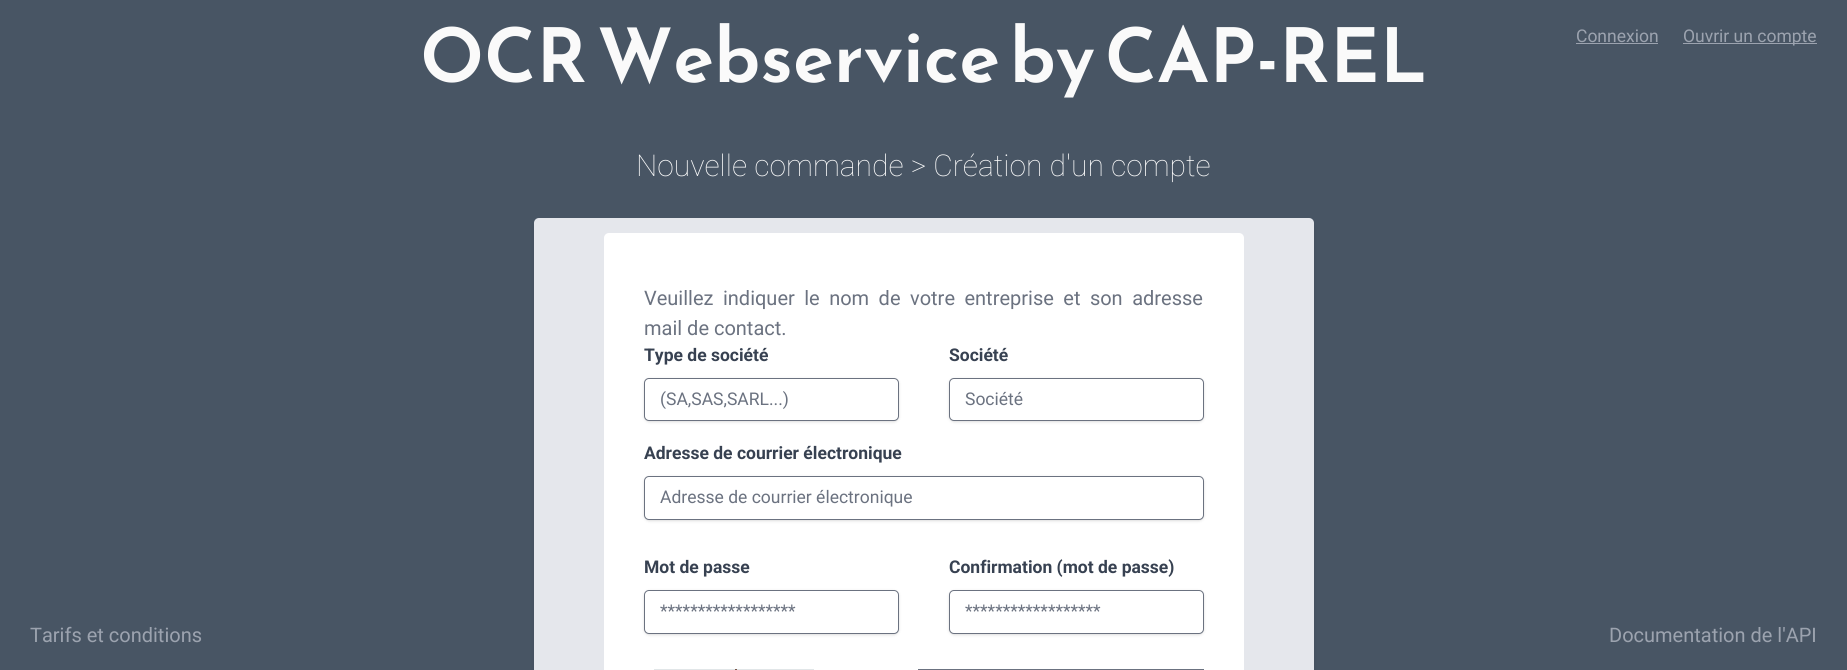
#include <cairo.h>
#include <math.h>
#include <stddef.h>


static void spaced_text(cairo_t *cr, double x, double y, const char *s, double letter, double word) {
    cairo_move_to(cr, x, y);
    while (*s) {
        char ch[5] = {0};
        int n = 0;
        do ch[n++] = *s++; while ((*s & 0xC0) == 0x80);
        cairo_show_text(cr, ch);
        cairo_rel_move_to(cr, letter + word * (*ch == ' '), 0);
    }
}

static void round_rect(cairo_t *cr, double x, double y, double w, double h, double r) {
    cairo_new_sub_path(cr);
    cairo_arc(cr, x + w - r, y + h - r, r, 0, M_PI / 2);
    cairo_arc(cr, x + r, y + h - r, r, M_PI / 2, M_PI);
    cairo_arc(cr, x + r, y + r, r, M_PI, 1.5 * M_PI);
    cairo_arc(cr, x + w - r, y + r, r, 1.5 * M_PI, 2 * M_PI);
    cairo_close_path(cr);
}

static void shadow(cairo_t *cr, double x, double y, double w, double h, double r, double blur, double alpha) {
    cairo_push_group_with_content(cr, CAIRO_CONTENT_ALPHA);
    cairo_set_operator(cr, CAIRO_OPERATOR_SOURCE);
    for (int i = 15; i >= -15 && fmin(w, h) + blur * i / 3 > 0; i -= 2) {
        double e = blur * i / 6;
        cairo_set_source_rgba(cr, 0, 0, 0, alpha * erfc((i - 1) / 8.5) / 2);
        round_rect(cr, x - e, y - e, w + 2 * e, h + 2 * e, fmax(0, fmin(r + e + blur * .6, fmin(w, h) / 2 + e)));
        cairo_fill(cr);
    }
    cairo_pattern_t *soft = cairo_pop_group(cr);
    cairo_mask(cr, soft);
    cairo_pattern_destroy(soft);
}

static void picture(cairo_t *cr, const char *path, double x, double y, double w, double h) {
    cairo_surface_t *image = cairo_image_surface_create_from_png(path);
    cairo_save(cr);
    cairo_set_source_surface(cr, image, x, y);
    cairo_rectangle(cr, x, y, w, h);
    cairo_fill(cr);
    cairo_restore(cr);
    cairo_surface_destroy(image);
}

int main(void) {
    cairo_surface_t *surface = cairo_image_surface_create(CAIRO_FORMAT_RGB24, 1847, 670);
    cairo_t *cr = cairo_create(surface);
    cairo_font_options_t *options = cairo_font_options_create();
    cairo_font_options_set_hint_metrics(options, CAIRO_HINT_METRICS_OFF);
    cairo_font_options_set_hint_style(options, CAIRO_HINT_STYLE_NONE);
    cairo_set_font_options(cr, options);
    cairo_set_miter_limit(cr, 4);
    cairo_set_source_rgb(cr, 0.282, 0.333, 0.392);
    cairo_paint(cr);
    cairo_select_font_face(cr, "Reem Kufi SemiBold", CAIRO_FONT_SLANT_NORMAL, CAIRO_FONT_WEIGHT_NORMAL);
    cairo_set_font_size(cr, 75);
    cairo_set_source_rgb(cr, 0.98, 0.98, 0.98);
    cairo_move_to(cr, 420, 82);
    cairo_show_text(cr, "OCR Webservice by CAP-REL");
    cairo_select_font_face(cr, "Roboto Thin", CAIRO_FONT_SLANT_NORMAL, CAIRO_FONT_WEIGHT_NORMAL);
    cairo_set_font_size(cr, 30);
    cairo_move_to(cr, 636, 176);
    cairo_show_text(cr, "Nouvelle commande > Création d'un compte");
    cairo_set_source_rgb(cr, 0, 0, 0);
    shadow(cr, 535, 223, 778, 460, 4, 3, 0.1);
    cairo_set_source_rgb(cr, 0.898, 0.906, 0.922);
    round_rect(cr, 534, 218, 780, 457, 5);
    cairo_fill(cr);
    cairo_set_source_rgb(cr, 1, 1, 1);
    round_rect(cr, 604, 233, 640, 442, 5);
    cairo_fill(cr);
    cairo_select_font_face(cr, "Roboto", CAIRO_FONT_SLANT_NORMAL, CAIRO_FONT_WEIGHT_NORMAL);
    cairo_set_font_size(cr, 20);
    cairo_set_source_rgb(cr, 0.42, 0.447, 0.502);
    spaced_text(cr, 644, 305, "Veuillez indiquer le nom de votre entreprise et son adresse", 0, 4.5);
    cairo_move_to(cr, 644, 335);
    cairo_show_text(cr, "mail de contact.");
    cairo_select_font_face(cr, "Roboto", CAIRO_FONT_SLANT_NORMAL, CAIRO_FONT_WEIGHT_BOLD);
    cairo_set_font_size(cr, 17.5);
    cairo_set_source_rgb(cr, 0.216, 0.255, 0.318);
    cairo_move_to(cr, 644, 361);
    cairo_show_text(cr, "Type de société");
    cairo_set_source_rgb(cr, 0, 0, 0);
    shadow(cr, 645, 380, 253, 41, 4, 1, 0.1);
    shadow(cr, 644, 379, 255, 43, 5, 1.5, 0.1);
    cairo_set_source_rgb(cr, 1, 1, 1);
    round_rect(cr, 644.5, 378.5, 254, 42, 4.5);
    cairo_fill_preserve(cr);
    cairo_set_source_rgb(cr, 0.42, 0.447, 0.502);
    cairo_set_line_width(cr, 1);
    cairo_stroke(cr);
    cairo_select_font_face(cr, "Roboto", CAIRO_FONT_SLANT_NORMAL, CAIRO_FONT_WEIGHT_NORMAL);
    cairo_move_to(cr, 660, 405);
    cairo_show_text(cr, "(SA,SAS,SARL...)");
    cairo_select_font_face(cr, "Roboto", CAIRO_FONT_SLANT_NORMAL, CAIRO_FONT_WEIGHT_BOLD);
    cairo_set_source_rgb(cr, 0.216, 0.255, 0.318);
    cairo_move_to(cr, 949, 361);
    cairo_show_text(cr, "Société");
    cairo_set_source_rgb(cr, 0, 0, 0);
    shadow(cr, 950, 380, 253, 41, 4, 1, 0.1);
    shadow(cr, 949, 379, 255, 43, 5, 1.5, 0.1);
    cairo_set_source_rgb(cr, 1, 1, 1);
    round_rect(cr, 949.5, 378.5, 254, 42, 4.5);
    cairo_fill_preserve(cr);
    cairo_set_source_rgb(cr, 0.42, 0.447, 0.502);
    cairo_stroke(cr);
    cairo_select_font_face(cr, "Roboto", CAIRO_FONT_SLANT_NORMAL, CAIRO_FONT_WEIGHT_NORMAL);
    cairo_move_to(cr, 965, 405);
    cairo_show_text(cr, "Société");
    cairo_select_font_face(cr, "Roboto", CAIRO_FONT_SLANT_NORMAL, CAIRO_FONT_WEIGHT_BOLD);
    cairo_set_source_rgb(cr, 0.216, 0.255, 0.318);
    cairo_move_to(cr, 644, 459);
    cairo_show_text(cr, "Adresse de courrier électronique");
    cairo_set_source_rgb(cr, 0, 0, 0);
    shadow(cr, 645, 478, 558, 42, 4, 1, 0.1);
    shadow(cr, 644, 477, 560, 44, 5, 1.5, 0.1);
    cairo_set_source_rgb(cr, 1, 1, 1);
    round_rect(cr, 644.5, 476.5, 559, 43, 4.5);
    cairo_fill_preserve(cr);
    cairo_set_source_rgb(cr, 0.42, 0.447, 0.502);
    cairo_stroke(cr);
    cairo_select_font_face(cr, "Roboto", CAIRO_FONT_SLANT_NORMAL, CAIRO_FONT_WEIGHT_NORMAL);
    cairo_move_to(cr, 660, 503);
    cairo_show_text(cr, "Adresse de courrier électronique");
    cairo_select_font_face(cr, "Roboto", CAIRO_FONT_SLANT_NORMAL, CAIRO_FONT_WEIGHT_BOLD);
    cairo_set_source_rgb(cr, 0.216, 0.255, 0.318);
    cairo_move_to(cr, 644, 573);
    cairo_show_text(cr, "Mot de passe");
    cairo_set_source_rgb(cr, 0, 0, 0);
    shadow(cr, 645, 592, 253, 42, 4, 1, 0.1);
    shadow(cr, 644, 591, 255, 44, 5, 1.5, 0.1);
    cairo_set_source_rgb(cr, 1, 1, 1);
    round_rect(cr, 644.5, 590.5, 254, 43, 4.5);
    cairo_fill_preserve(cr);
    cairo_set_source_rgb(cr, 0.42, 0.447, 0.502);
    cairo_stroke(cr);
    cairo_select_font_face(cr, "Roboto", CAIRO_FONT_SLANT_NORMAL, CAIRO_FONT_WEIGHT_NORMAL);
    cairo_move_to(cr, 660, 617);
    cairo_show_text(cr, "******************");
    cairo_select_font_face(cr, "Roboto", CAIRO_FONT_SLANT_NORMAL, CAIRO_FONT_WEIGHT_BOLD);
    cairo_set_source_rgb(cr, 0.216, 0.255, 0.318);
    cairo_move_to(cr, 949, 573);
    cairo_show_text(cr, "Confirmation (mot de passe)");
    cairo_set_source_rgb(cr, 0, 0, 0);
    shadow(cr, 950, 592, 253, 42, 4, 1, 0.1);
    shadow(cr, 949, 591, 255, 44, 5, 1.5, 0.1);
    cairo_set_source_rgb(cr, 1, 1, 1);
    round_rect(cr, 949.5, 590.5, 254, 43, 4.5);
    cairo_fill_preserve(cr);
    cairo_set_source_rgb(cr, 0.42, 0.447, 0.502);
    cairo_stroke(cr);
    cairo_select_font_face(cr, "Roboto", CAIRO_FONT_SLANT_NORMAL, CAIRO_FONT_WEIGHT_NORMAL);
    cairo_move_to(cr, 965, 617);
    cairo_show_text(cr, "******************");
    picture(cr, "img1.png", 654, 669, 160, 1);
    cairo_rectangle(cr, 918.5, 669.5, 285, 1);
    cairo_stroke(cr);
    cairo_set_source_rgb(cr, 0.612, 0.639, 0.686);
    cairo_move_to(cr, 1576, 42);
    cairo_show_text(cr, "Connexion");
    cairo_rectangle(cr, 1576, 43, 82, 1);
    cairo_fill(cr);
    cairo_rectangle(cr, 1683, 43, 134, 1);
    cairo_fill(cr);
    cairo_move_to(cr, 1683, 42);
    cairo_show_text(cr, "Ouvrir un compte");
    cairo_set_font_size(cr, 20);
    cairo_move_to(cr, 30, 642);
    cairo_show_text(cr, "Tarifs et conditions");
    cairo_move_to(cr, 1609, 642);
    cairo_show_text(cr, "Documentation de l'API");
    cairo_surface_write_to_png(surface, "page.png");
    cairo_font_options_destroy(options);
    cairo_destroy(cr);
    cairo_surface_destroy(surface);
    return 0;
}
